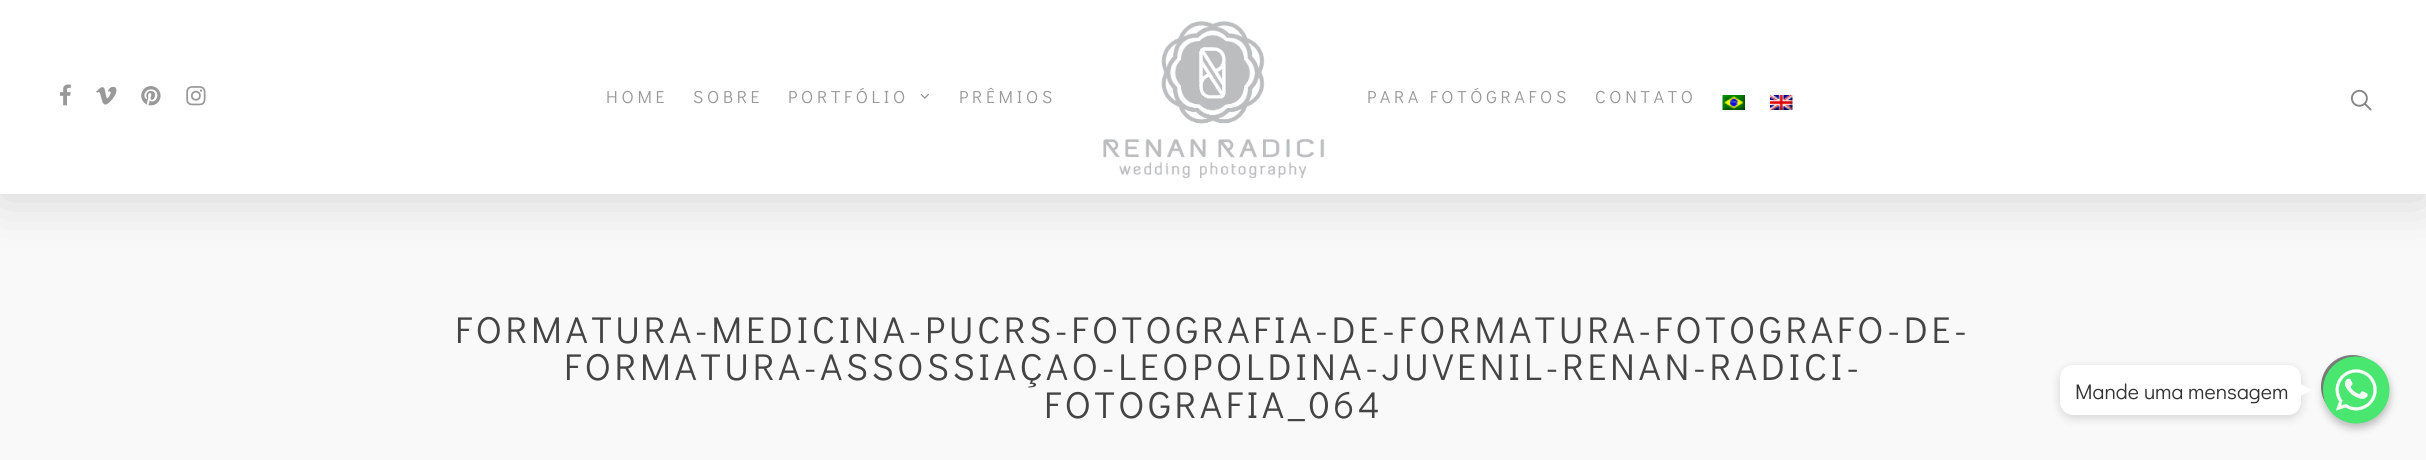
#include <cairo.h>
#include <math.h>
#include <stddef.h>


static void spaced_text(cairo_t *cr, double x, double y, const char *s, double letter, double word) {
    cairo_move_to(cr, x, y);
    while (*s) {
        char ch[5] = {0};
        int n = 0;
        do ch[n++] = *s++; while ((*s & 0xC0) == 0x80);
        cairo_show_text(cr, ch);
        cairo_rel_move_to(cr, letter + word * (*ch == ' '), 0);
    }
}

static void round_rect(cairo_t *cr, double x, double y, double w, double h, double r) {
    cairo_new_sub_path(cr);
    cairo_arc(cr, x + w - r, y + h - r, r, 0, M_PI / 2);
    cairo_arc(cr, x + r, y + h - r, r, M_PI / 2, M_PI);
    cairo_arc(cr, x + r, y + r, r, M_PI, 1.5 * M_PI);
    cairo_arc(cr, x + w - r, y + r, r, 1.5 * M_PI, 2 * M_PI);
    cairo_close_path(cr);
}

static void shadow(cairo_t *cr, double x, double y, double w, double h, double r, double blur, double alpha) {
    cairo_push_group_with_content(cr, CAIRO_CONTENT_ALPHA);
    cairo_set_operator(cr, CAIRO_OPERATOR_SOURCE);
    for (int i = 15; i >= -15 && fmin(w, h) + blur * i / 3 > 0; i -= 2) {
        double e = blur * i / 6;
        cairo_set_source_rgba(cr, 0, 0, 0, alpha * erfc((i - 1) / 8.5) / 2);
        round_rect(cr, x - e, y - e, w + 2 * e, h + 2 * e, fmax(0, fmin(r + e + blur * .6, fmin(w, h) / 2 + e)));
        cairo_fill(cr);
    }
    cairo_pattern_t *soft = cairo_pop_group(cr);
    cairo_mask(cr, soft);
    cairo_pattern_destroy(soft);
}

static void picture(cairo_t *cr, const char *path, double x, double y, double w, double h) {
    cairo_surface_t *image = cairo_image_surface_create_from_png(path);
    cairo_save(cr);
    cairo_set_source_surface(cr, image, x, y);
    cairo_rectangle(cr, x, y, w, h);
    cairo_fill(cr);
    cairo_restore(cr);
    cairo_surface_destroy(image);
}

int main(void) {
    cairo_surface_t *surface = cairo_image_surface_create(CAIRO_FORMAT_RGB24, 2426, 460);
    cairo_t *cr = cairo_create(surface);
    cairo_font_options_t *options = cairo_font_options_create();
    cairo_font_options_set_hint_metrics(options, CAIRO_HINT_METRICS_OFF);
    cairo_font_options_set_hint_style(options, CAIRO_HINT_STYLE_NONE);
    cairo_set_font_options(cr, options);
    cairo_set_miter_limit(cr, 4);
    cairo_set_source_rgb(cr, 0.973, 0.973, 0.973);
    cairo_paint(cr);
    cairo_set_source_rgb(cr, 0, 0, 0);
    shadow(cr, 0, 4, 2426, 194, 0, 28, 0.15);
    cairo_set_source_rgb(cr, 1, 1, 1);
    cairo_rectangle(cr, 0, 0, 2426, 194);
    cairo_fill(cr);
    picture(cr, "img1.png", 1103, 21, 222, 158);
    picture(cr, "img2.png", 59, 84, 12, 22);
    picture(cr, "img3.png", 96, 86, 21, 19);
    picture(cr, "img4.png", 141, 86, 20, 20);
    picture(cr, "img5.png", 186, 86, 20, 20);
    cairo_select_font_face(cr, "Didact Gothic", CAIRO_FONT_SLANT_NORMAL, CAIRO_FONT_WEIGHT_NORMAL);
    cairo_set_font_size(cr, 17.5);
    cairo_set_source_rgb(cr, 0.6, 0.6, 0.6);
    spaced_text(cr, 606, 103, "HOME", 3.75, 0);
    spaced_text(cr, 693, 103, "SOBRE", 3.75, 0);
    spaced_text(cr, 788, 103, "PORTFÓLIO", 3.75, 0);
    picture(cr, "img6.png", 920, 93, 9, 6);
    spaced_text(cr, 959, 103, "PRÊMIOS", 3.75, 0);
    spaced_text(cr, 1367, 103, "PARA FOTÓGRAFOS", 3.75, 0);
    spaced_text(cr, 1595, 103, "CONTATO", 3.75, 0);
    picture(cr, "img7.png", 1722, 95, 23, 15);
    picture(cr, "img8.png", 1770, 95, 23, 15);
    picture(cr, "img9.png", 2351, 89, 21, 22);
    cairo_set_font_size(cr, 37.5);
    cairo_set_source_rgb(cr, 0.267, 0.267, 0.267);
    spaced_text(cr, 455, 343, "FORMATURA-MEDICINA-PUCRS-FOTOGRAFIA-DE-FORMATURA-FOTOGRAFO-DE-", 3.75, 0);
    spaced_text(cr, 564, 380, "FORMATURA-ASSOSSIAÇAO-LEOPOLDINA-JUVENIL-RENAN-RADICI-", 3.75, 0);
    spaced_text(cr, 1044, 418, "FOTOGRAFIA_064", 3.75, 0);
    cairo_set_source_rgb(cr, 0.498, 0.498, 0.498);
    cairo_new_path(cr);
    cairo_arc(cr, 2352.5, 386.5, 31.5, 0, 2 * M_PI);
    cairo_fill(cr);
    cairo_set_source_rgb(cr, 0, 0, 0);
    shadow(cr, 2060, 368, 241, 50, 13, 5, 0.15);
    cairo_set_source_rgb(cr, 1, 1, 1);
    round_rect(cr, 2060, 365, 241, 50, 13);
    cairo_fill(cr);
    cairo_set_font_size(cr, 21.25);
    cairo_set_source_rgb(cr, 0.2, 0.2, 0.2);
    cairo_move_to(cr, 2075, 399);
    cairo_show_text(cr, "Mande uma mensagem");
    cairo_set_source_rgb(cr, 0, 0, 0);
    shadow(cr, 2323, 360, 67, 68, 33.5, 4, 0.25);
    cairo_set_source_rgb(cr, 1, 1, 1);
    cairo_new_path(cr);
    cairo_move_to(cr, 2300, 396);
    cairo_line_to(cr, 2300, 384);
    cairo_line_to(cr, 2312.5, 390);
    cairo_close_path(cr);
    cairo_fill(cr);
    picture(cr, "img10.png", 2323, 356, 67, 68);
    cairo_surface_write_to_png(surface, "page.png");
    cairo_font_options_destroy(options);
    cairo_destroy(cr);
    cairo_surface_destroy(surface);
    return 0;
}
